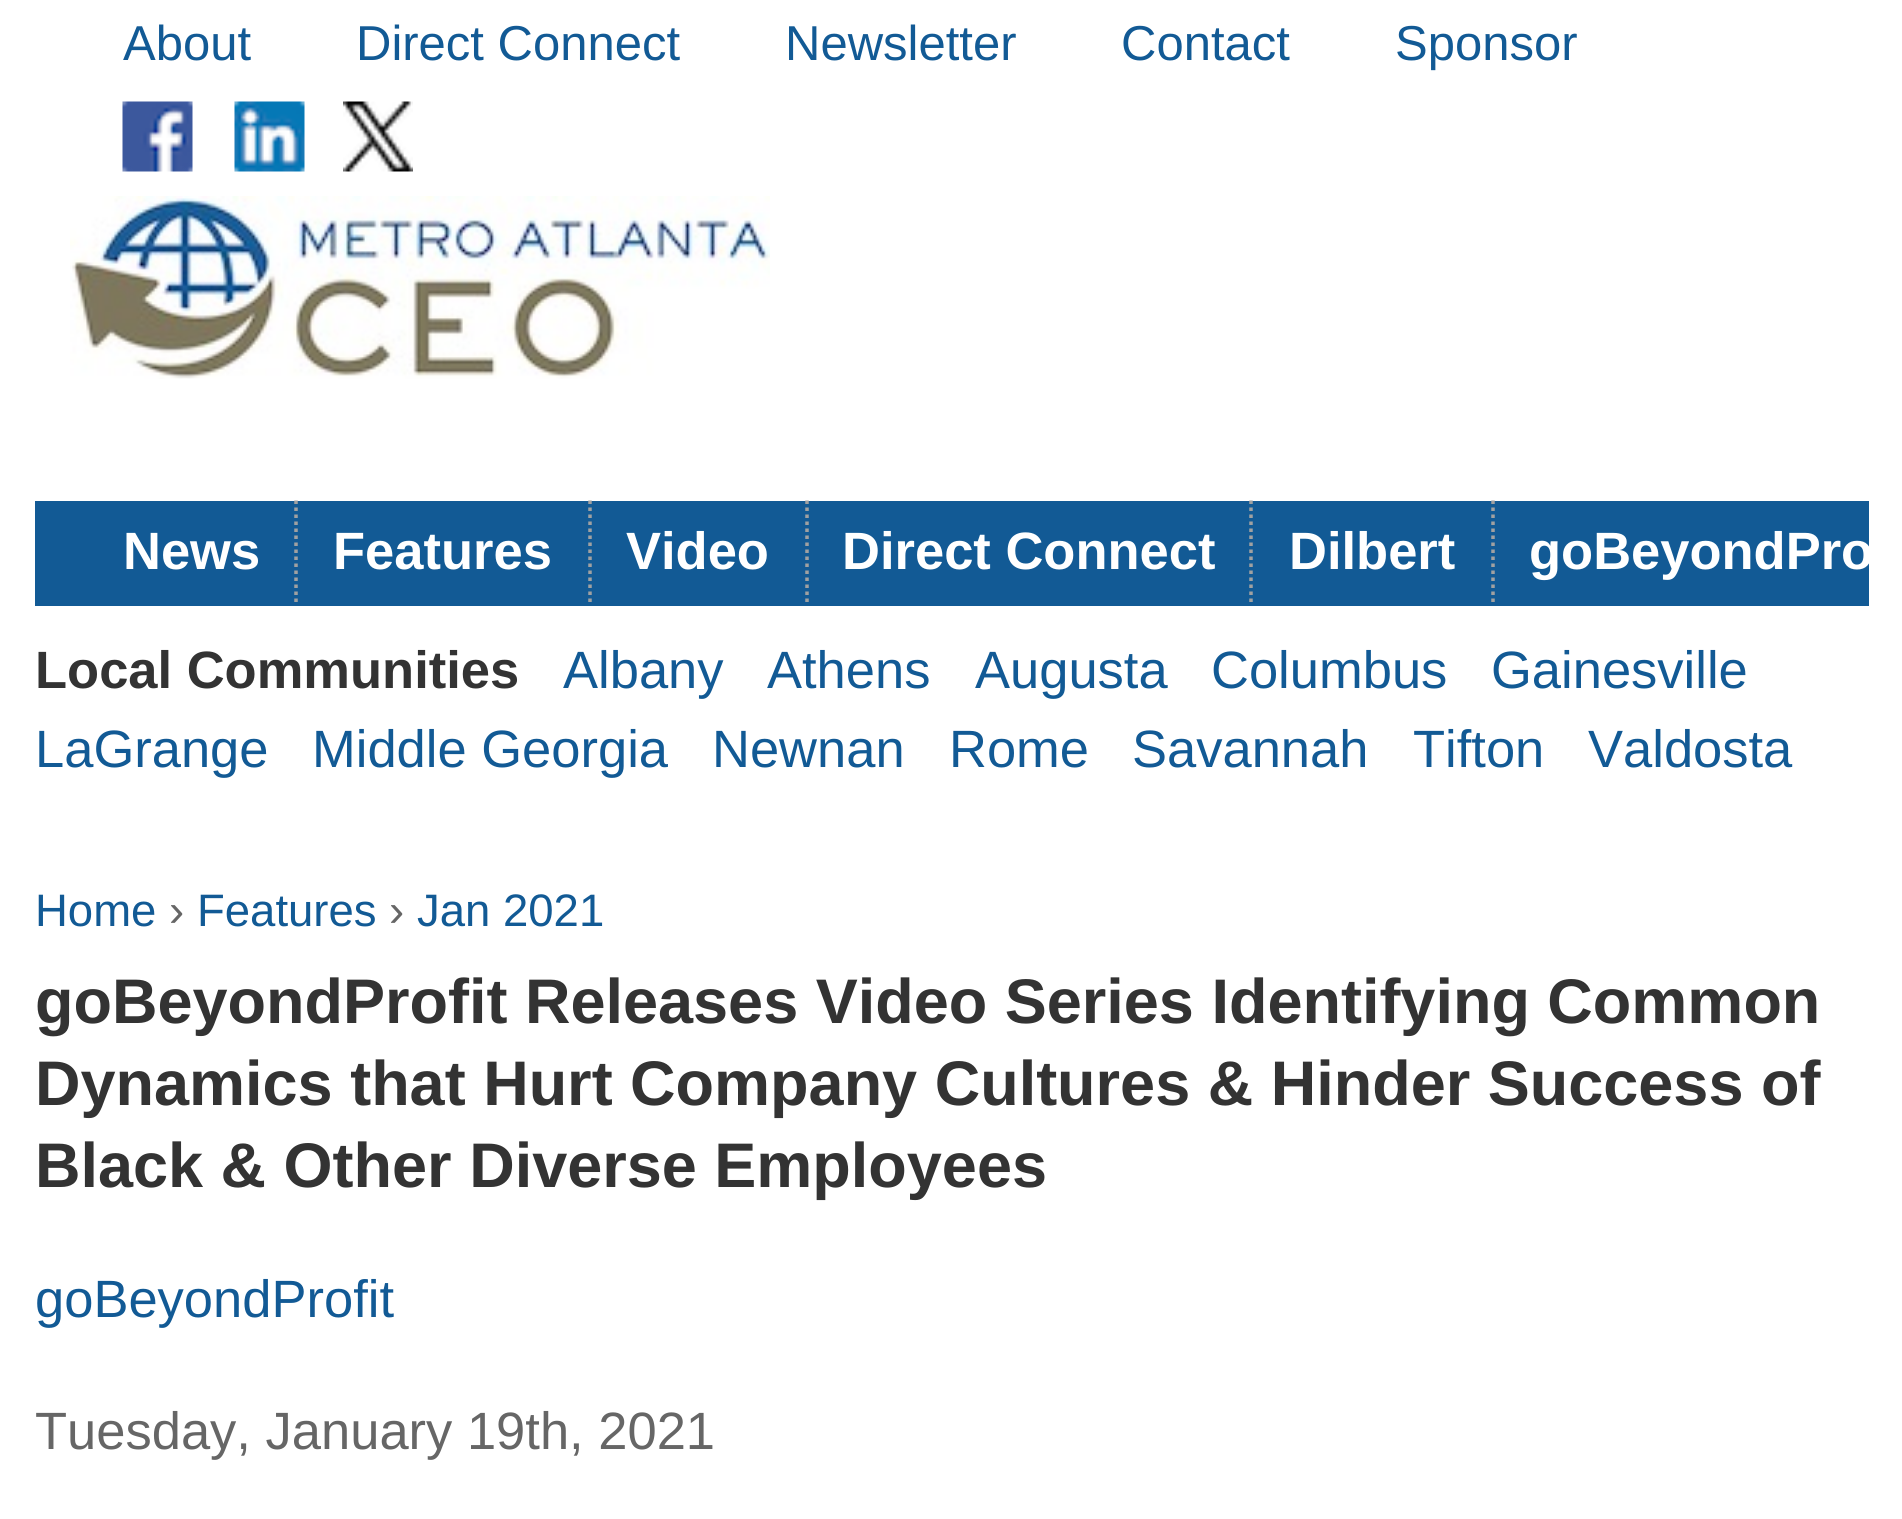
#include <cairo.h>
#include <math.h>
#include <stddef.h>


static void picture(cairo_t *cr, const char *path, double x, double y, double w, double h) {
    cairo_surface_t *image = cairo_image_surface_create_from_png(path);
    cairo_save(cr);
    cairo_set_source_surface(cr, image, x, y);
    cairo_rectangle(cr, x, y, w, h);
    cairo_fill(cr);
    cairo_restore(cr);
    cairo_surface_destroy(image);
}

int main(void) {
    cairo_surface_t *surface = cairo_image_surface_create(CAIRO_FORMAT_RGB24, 1902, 1519);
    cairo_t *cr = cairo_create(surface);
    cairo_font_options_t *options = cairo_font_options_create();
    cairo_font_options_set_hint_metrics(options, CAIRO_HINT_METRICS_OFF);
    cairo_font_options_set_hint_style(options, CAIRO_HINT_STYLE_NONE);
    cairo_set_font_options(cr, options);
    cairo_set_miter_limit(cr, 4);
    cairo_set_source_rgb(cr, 1, 1, 1);
    cairo_paint(cr);
    cairo_select_font_face(cr, "Liberation Sans", CAIRO_FONT_SLANT_NORMAL, CAIRO_FONT_WEIGHT_NORMAL);
    cairo_set_font_size(cr, 49);
    cairo_set_source_rgb(cr, 0.071, 0.353, 0.584);
    cairo_move_to(cr, 123, 60);
    cairo_show_text(cr, "About");
    cairo_move_to(cr, 356, 60);
    cairo_show_text(cr, "Direct Connect");
    cairo_move_to(cr, 785, 60);
    cairo_show_text(cr, "Newsletter");
    cairo_move_to(cr, 1121, 60);
    cairo_show_text(cr, "Contact");
    cairo_move_to(cr, 1395, 60);
    cairo_show_text(cr, "Sponsor");
    picture(cr, "img1.png", 122, 101, 71, 71);
    picture(cr, "img2.png", 234, 101, 71, 71);
    picture(cr, "img3.png", 343, 101, 70, 71);
    picture(cr, "img4.png", 70, 196, 700, 183);
    cairo_rectangle(cr, 35, 501, 1834, 105);
    cairo_fill(cr);
    cairo_new_path(cr);
    cairo_move_to(cr, 296, 500.5);
    cairo_line_to(cr, 296, 605.5);
    cairo_set_source_rgb(cr, 0.631, 0.631, 0.631);
    cairo_set_line_width(cr, 3.5);
    cairo_set_dash(cr, (double[]){3.5, 3.5}, 2, 0);
    cairo_stroke(cr);
    cairo_select_font_face(cr, "Liberation Sans", CAIRO_FONT_SLANT_NORMAL, CAIRO_FONT_WEIGHT_BOLD);
    cairo_set_font_size(cr, 52.5);
    cairo_set_source_rgb(cr, 1, 1, 1);
    cairo_move_to(cr, 123, 569);
    cairo_show_text(cr, "News");
    cairo_new_path(cr);
    cairo_move_to(cr, 590, 500.5);
    cairo_line_to(cr, 590, 605.5);
    cairo_set_source_rgb(cr, 0.631, 0.631, 0.631);
    cairo_stroke(cr);
    cairo_set_source_rgb(cr, 1, 1, 1);
    cairo_move_to(cr, 333, 569);
    cairo_show_text(cr, "Features");
    cairo_new_path(cr);
    cairo_move_to(cr, 807, 500.5);
    cairo_line_to(cr, 807, 605.5);
    cairo_set_source_rgb(cr, 0.631, 0.631, 0.631);
    cairo_stroke(cr);
    cairo_set_source_rgb(cr, 1, 1, 1);
    cairo_move_to(cr, 626, 569);
    cairo_show_text(cr, "Video");
    cairo_new_path(cr);
    cairo_move_to(cr, 1251, 500.5);
    cairo_line_to(cr, 1251, 605.5);
    cairo_set_source_rgb(cr, 0.631, 0.631, 0.631);
    cairo_stroke(cr);
    cairo_set_source_rgb(cr, 1, 1, 1);
    cairo_move_to(cr, 842, 569);
    cairo_show_text(cr, "Direct Connect");
    cairo_new_path(cr);
    cairo_move_to(cr, 1493, 500.5);
    cairo_line_to(cr, 1493, 605.5);
    cairo_set_source_rgb(cr, 0.631, 0.631, 0.631);
    cairo_stroke(cr);
    cairo_set_source_rgb(cr, 1, 1, 1);
    cairo_move_to(cr, 1289, 569);
    cairo_show_text(cr, "Dilbert");
    cairo_move_to(cr, 1529, 569);
    cairo_show_text(cr, "goBeyondPro");
    cairo_set_source_rgb(cr, 0.2, 0.2, 0.2);
    cairo_move_to(cr, 35, 688);
    cairo_show_text(cr, "Local Communities");
    cairo_select_font_face(cr, "Liberation Sans", CAIRO_FONT_SLANT_NORMAL, CAIRO_FONT_WEIGHT_NORMAL);
    cairo_set_source_rgb(cr, 0.071, 0.353, 0.584);
    cairo_move_to(cr, 563, 688);
    cairo_show_text(cr, "Albany");
    cairo_move_to(cr, 767, 688);
    cairo_show_text(cr, "Athens");
    cairo_move_to(cr, 975, 688);
    cairo_show_text(cr, "Augusta");
    cairo_move_to(cr, 1211, 688);
    cairo_show_text(cr, "Columbus");
    cairo_move_to(cr, 1491, 688);
    cairo_show_text(cr, "Gainesville");
    cairo_move_to(cr, 35, 767);
    cairo_show_text(cr, "LaGrange");
    cairo_move_to(cr, 312, 767);
    cairo_show_text(cr, "Middle Georgia");
    cairo_move_to(cr, 712, 767);
    cairo_show_text(cr, "Newnan");
    cairo_move_to(cr, 949, 767);
    cairo_show_text(cr, "Rome");
    cairo_move_to(cr, 1132, 767);
    cairo_show_text(cr, "Savannah");
    cairo_move_to(cr, 1413, 767);
    cairo_show_text(cr, "Tifton");
    cairo_move_to(cr, 1588, 767);
    cairo_show_text(cr, "Valdosta");
    cairo_set_font_size(cr, 45.5);
    cairo_move_to(cr, 35, 926);
    cairo_show_text(cr, "Home");
    cairo_set_source_rgb(cr, 0.4, 0.4, 0.4);
    cairo_move_to(cr, 169, 926);
    cairo_show_text(cr, "›");
    cairo_set_source_rgb(cr, 0.071, 0.353, 0.584);
    cairo_move_to(cr, 197, 926);
    cairo_show_text(cr, "Features");
    cairo_set_source_rgb(cr, 0.4, 0.4, 0.4);
    cairo_move_to(cr, 389, 926);
    cairo_show_text(cr, "›");
    cairo_set_source_rgb(cr, 0.071, 0.353, 0.584);
    cairo_move_to(cr, 417, 926);
    cairo_show_text(cr, "Jan 2021");
    cairo_select_font_face(cr, "Liberation Sans", CAIRO_FONT_SLANT_NORMAL, CAIRO_FONT_WEIGHT_BOLD);
    cairo_set_font_size(cr, 63);
    cairo_set_source_rgb(cr, 0.2, 0.2, 0.2);
    cairo_move_to(cr, 35, 1023);
    cairo_show_text(cr, "goBeyondProfit Releases Video Series Identifying Common");
    cairo_move_to(cr, 35, 1105);
    cairo_show_text(cr, "Dynamics that Hurt Company Cultures & Hinder Success of");
    cairo_move_to(cr, 35, 1187);
    cairo_show_text(cr, "Black & Other Diverse Employees");
    cairo_select_font_face(cr, "Liberation Sans", CAIRO_FONT_SLANT_NORMAL, CAIRO_FONT_WEIGHT_NORMAL);
    cairo_set_font_size(cr, 52.5);
    cairo_set_source_rgb(cr, 0.071, 0.353, 0.584);
    cairo_move_to(cr, 35, 1317);
    cairo_show_text(cr, "goBeyondProfit");
    cairo_set_source_rgb(cr, 0.4, 0.4, 0.4);
    cairo_move_to(cr, 35, 1449);
    cairo_show_text(cr, "Tuesday, January 19th, 2021");
    cairo_surface_write_to_png(surface, "page.png");
    cairo_font_options_destroy(options);
    cairo_destroy(cr);
    cairo_surface_destroy(surface);
    return 0;
}
